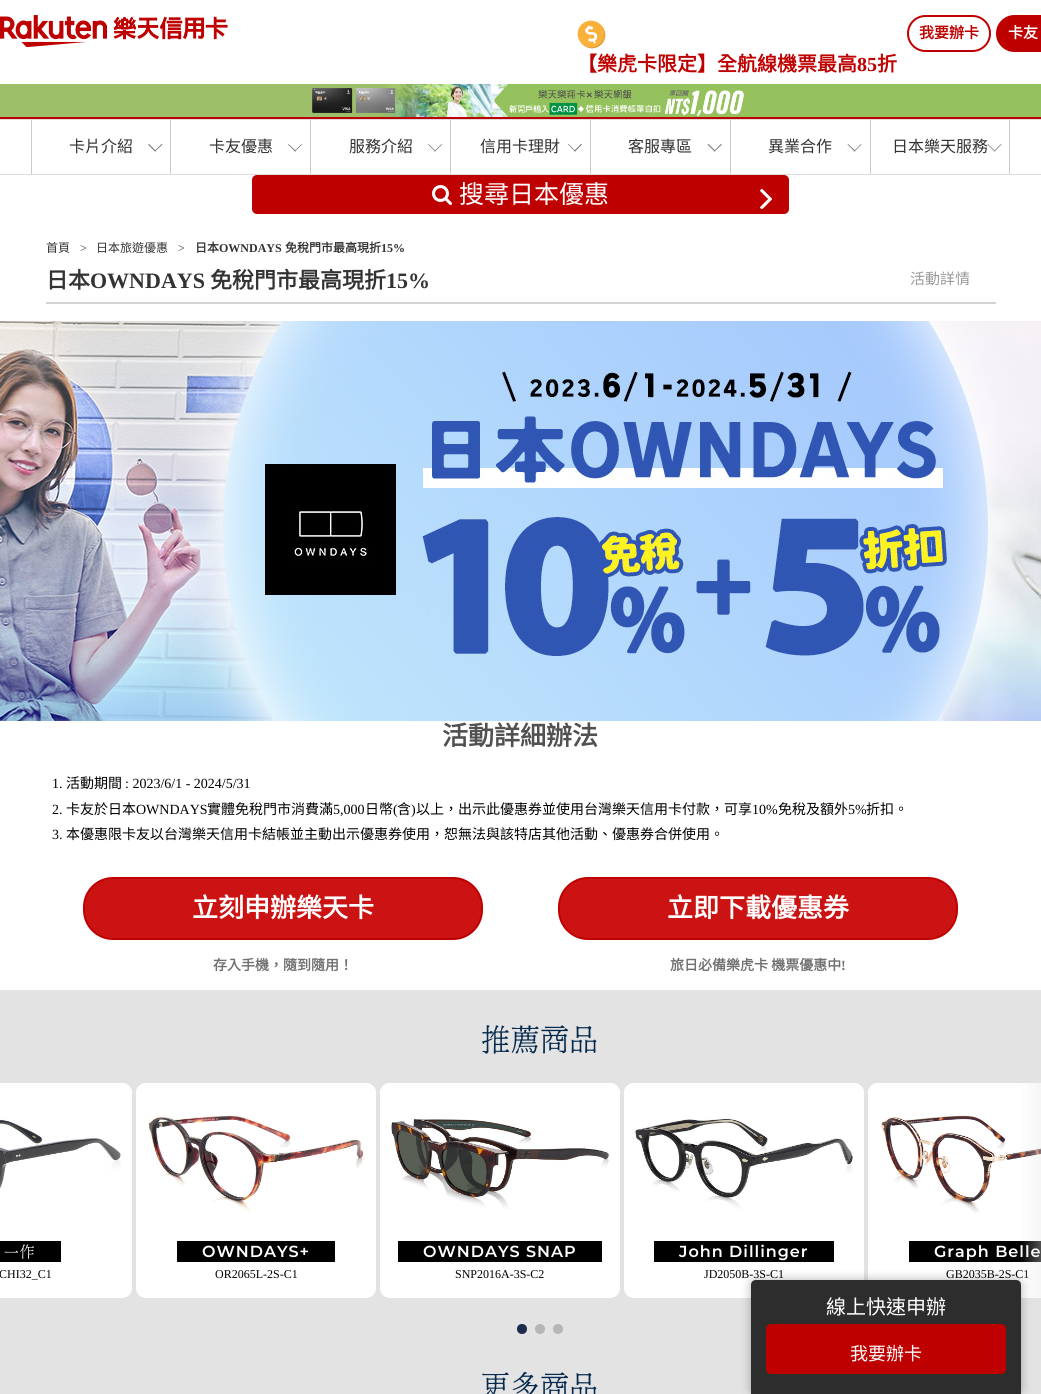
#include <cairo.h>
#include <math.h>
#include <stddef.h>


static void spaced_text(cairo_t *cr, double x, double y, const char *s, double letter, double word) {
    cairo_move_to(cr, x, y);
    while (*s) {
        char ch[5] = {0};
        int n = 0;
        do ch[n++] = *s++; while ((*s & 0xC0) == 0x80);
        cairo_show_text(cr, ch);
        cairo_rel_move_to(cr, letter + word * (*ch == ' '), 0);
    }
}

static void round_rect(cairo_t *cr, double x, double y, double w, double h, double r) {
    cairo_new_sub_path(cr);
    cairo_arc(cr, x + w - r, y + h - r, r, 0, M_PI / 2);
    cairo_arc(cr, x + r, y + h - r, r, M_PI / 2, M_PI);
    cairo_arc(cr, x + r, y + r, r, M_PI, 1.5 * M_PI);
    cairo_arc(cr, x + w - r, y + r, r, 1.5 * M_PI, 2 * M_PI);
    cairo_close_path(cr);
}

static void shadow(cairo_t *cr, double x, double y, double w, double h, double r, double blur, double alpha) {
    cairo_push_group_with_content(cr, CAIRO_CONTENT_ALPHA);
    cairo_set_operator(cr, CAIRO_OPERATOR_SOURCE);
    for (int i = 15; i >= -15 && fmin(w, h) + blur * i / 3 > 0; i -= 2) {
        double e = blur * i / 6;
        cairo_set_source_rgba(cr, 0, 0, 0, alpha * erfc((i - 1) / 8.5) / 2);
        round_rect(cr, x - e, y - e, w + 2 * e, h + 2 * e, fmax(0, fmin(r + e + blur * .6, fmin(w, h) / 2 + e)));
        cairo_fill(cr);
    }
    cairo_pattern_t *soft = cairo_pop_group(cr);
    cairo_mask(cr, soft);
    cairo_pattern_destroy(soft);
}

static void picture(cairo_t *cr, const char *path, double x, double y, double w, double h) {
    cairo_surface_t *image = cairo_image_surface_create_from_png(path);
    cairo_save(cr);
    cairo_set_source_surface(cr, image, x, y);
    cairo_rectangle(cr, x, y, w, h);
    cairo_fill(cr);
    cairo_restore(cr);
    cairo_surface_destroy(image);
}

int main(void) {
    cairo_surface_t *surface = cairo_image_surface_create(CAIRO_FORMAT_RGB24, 1041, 1394);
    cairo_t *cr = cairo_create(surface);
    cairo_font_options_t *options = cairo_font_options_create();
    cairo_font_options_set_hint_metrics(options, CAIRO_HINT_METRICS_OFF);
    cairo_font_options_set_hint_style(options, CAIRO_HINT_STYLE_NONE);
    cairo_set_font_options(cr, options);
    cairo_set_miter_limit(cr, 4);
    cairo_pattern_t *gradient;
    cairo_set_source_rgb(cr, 1, 1, 1);
    cairo_paint(cr);
    cairo_set_source_rgb(cr, 0.749, 0, 0);
    cairo_rectangle(cr, 0, 117, 1041, 2);
    cairo_fill(cr);
    picture(cr, "img1.png", 0, 15, 228, 32);
    round_rect(cr, 908, 16, 82, 35, 17.5);
    cairo_stroke(cr);
    cairo_select_font_face(cr, "Noto Sans CJK TC", CAIRO_FONT_SLANT_NORMAL, CAIRO_FONT_WEIGHT_BOLD);
    cairo_set_font_size(cr, 15);
    cairo_move_to(cr, 919, 38);
    cairo_show_text(cr, "我要辦卡");
    round_rect(cr, 997, 16, 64, 35, 17.5);
    cairo_fill_preserve(cr);
    cairo_stroke(cr);
    cairo_set_source_rgb(cr, 1, 1, 1);
    cairo_move_to(cr, 1008, 38);
    cairo_show_text(cr, "卡友");
    picture(cr, "img2.png", 577, 20, 29, 29);
    cairo_set_font_size(cr, 20);
    cairo_set_source_rgb(cr, 0.749, 0, 0);
    cairo_move_to(cr, 577, 71);
    cairo_show_text(cr, "【樂虎卡限定】全航線機票最高");
    cairo_select_font_face(cr, "Liberation Serif", CAIRO_FONT_SLANT_NORMAL, CAIRO_FONT_WEIGHT_BOLD);
    cairo_move_to(cr, 857, 71);
    cairo_show_text(cr, "85");
    cairo_select_font_face(cr, "Noto Sans CJK TC", CAIRO_FONT_SLANT_NORMAL, CAIRO_FONT_WEIGHT_BOLD);
    cairo_move_to(cr, 877, 71);
    cairo_show_text(cr, "折");
    picture(cr, "img3.png", 0, 84, 1041, 33);
    cairo_set_source_rgb(cr, 0.867, 0.867, 0.867);
    cairo_rectangle(cr, 0, 119, 1041, 1);
    cairo_fill(cr);
    cairo_rectangle(cr, 0, 174, 1041, 1);
    cairo_fill(cr);
    cairo_set_source_rgb(cr, 0.8, 0.8, 0.8);
    cairo_rectangle(cr, 170, 120, 1, 54);
    cairo_fill(cr);
    cairo_rectangle(cr, 31, 120, 1, 54);
    cairo_fill(cr);
    cairo_select_font_face(cr, "Noto Sans CJK TC", CAIRO_FONT_SLANT_NORMAL, CAIRO_FONT_WEIGHT_NORMAL);
    cairo_set_font_size(cr, 16);
    cairo_set_source_rgb(cr, 0.2, 0.2, 0.2);
    cairo_move_to(cr, 69, 152);
    cairo_show_text(cr, "卡片介紹");
    cairo_set_source_rgb(cr, 0.455, 0.455, 0.455);
    cairo_new_path(cr);
    cairo_move_to(cr, 155, 151.5);
    cairo_line_to(cr, 148, 144.5);
    cairo_line_to(cr, 149, 144);
    cairo_line_to(cr, 156, 151);
    cairo_close_path(cr);
    cairo_fill(cr);
    cairo_new_path(cr);
    cairo_move_to(cr, 155, 151.5);
    cairo_line_to(cr, 154.5, 151);
    cairo_line_to(cr, 161.5, 144);
    cairo_line_to(cr, 162.5, 144.5);
    cairo_close_path(cr);
    cairo_fill(cr);
    cairo_set_source_rgb(cr, 0.8, 0.8, 0.8);
    cairo_rectangle(cr, 310, 120, 1, 54);
    cairo_fill(cr);
    cairo_set_source_rgb(cr, 0.2, 0.2, 0.2);
    cairo_move_to(cr, 209, 152);
    cairo_show_text(cr, "卡友優惠");
    cairo_set_source_rgb(cr, 0.455, 0.455, 0.455);
    cairo_new_path(cr);
    cairo_move_to(cr, 295, 151.5);
    cairo_line_to(cr, 288, 144.5);
    cairo_line_to(cr, 288.5, 144);
    cairo_line_to(cr, 296, 151);
    cairo_close_path(cr);
    cairo_fill(cr);
    cairo_new_path(cr);
    cairo_move_to(cr, 295, 151.5);
    cairo_line_to(cr, 294.5, 151);
    cairo_line_to(cr, 301.5, 144);
    cairo_line_to(cr, 302, 144.5);
    cairo_close_path(cr);
    cairo_fill(cr);
    cairo_set_source_rgb(cr, 0.8, 0.8, 0.8);
    cairo_rectangle(cr, 450, 120, 1, 54);
    cairo_fill(cr);
    cairo_set_source_rgb(cr, 0.2, 0.2, 0.2);
    cairo_move_to(cr, 349, 152);
    cairo_show_text(cr, "服務介紹");
    cairo_set_source_rgb(cr, 0.455, 0.455, 0.455);
    cairo_new_path(cr);
    cairo_move_to(cr, 435, 151.5);
    cairo_line_to(cr, 428, 144.5);
    cairo_line_to(cr, 428.5, 144);
    cairo_line_to(cr, 435.5, 151);
    cairo_close_path(cr);
    cairo_fill(cr);
    cairo_new_path(cr);
    cairo_move_to(cr, 435, 151.5);
    cairo_line_to(cr, 434.5, 151);
    cairo_line_to(cr, 441.5, 144);
    cairo_line_to(cr, 442, 144.5);
    cairo_close_path(cr);
    cairo_fill(cr);
    cairo_set_source_rgb(cr, 0.8, 0.8, 0.8);
    cairo_rectangle(cr, 590, 120, 1, 54);
    cairo_fill(cr);
    cairo_set_source_rgb(cr, 0.2, 0.2, 0.2);
    cairo_move_to(cr, 480, 152);
    cairo_show_text(cr, "信用卡理財");
    cairo_set_source_rgb(cr, 0.455, 0.455, 0.455);
    cairo_new_path(cr);
    cairo_move_to(cr, 575, 151.5);
    cairo_line_to(cr, 568, 144.5);
    cairo_line_to(cr, 568.5, 144);
    cairo_line_to(cr, 575.5, 151);
    cairo_close_path(cr);
    cairo_fill(cr);
    cairo_new_path(cr);
    cairo_move_to(cr, 575, 151.5);
    cairo_line_to(cr, 574, 151);
    cairo_line_to(cr, 581, 144);
    cairo_line_to(cr, 582, 144.5);
    cairo_close_path(cr);
    cairo_fill(cr);
    cairo_set_source_rgb(cr, 0.8, 0.8, 0.8);
    cairo_rectangle(cr, 730, 120, 1, 54);
    cairo_fill(cr);
    cairo_set_source_rgb(cr, 0.2, 0.2, 0.2);
    cairo_move_to(cr, 628, 152);
    cairo_show_text(cr, "客服專區");
    cairo_set_source_rgb(cr, 0.455, 0.455, 0.455);
    cairo_new_path(cr);
    cairo_move_to(cr, 714.5, 151.5);
    cairo_line_to(cr, 707.5, 144.5);
    cairo_line_to(cr, 708.5, 144);
    cairo_line_to(cr, 715.5, 151);
    cairo_close_path(cr);
    cairo_fill(cr);
    cairo_new_path(cr);
    cairo_move_to(cr, 714.5, 151.5);
    cairo_line_to(cr, 714, 151);
    cairo_line_to(cr, 721, 144);
    cairo_line_to(cr, 722, 144.5);
    cairo_close_path(cr);
    cairo_fill(cr);
    cairo_set_source_rgb(cr, 0.8, 0.8, 0.8);
    cairo_rectangle(cr, 870, 120, 1, 54);
    cairo_fill(cr);
    cairo_set_source_rgb(cr, 0.2, 0.2, 0.2);
    cairo_move_to(cr, 768, 152);
    cairo_show_text(cr, "異業合作");
    cairo_set_source_rgb(cr, 0.455, 0.455, 0.455);
    cairo_new_path(cr);
    cairo_move_to(cr, 854.5, 151.5);
    cairo_line_to(cr, 847.5, 144.5);
    cairo_line_to(cr, 848, 144);
    cairo_line_to(cr, 855.5, 151);
    cairo_close_path(cr);
    cairo_fill(cr);
    cairo_new_path(cr);
    cairo_move_to(cr, 854.5, 151.5);
    cairo_line_to(cr, 854, 151);
    cairo_line_to(cr, 861, 144);
    cairo_line_to(cr, 861.5, 144.5);
    cairo_close_path(cr);
    cairo_fill(cr);
    cairo_set_source_rgb(cr, 0.8, 0.8, 0.8);
    cairo_rectangle(cr, 1009, 120, 1, 54);
    cairo_fill(cr);
    cairo_set_source_rgb(cr, 0.2, 0.2, 0.2);
    cairo_move_to(cr, 892, 152);
    cairo_show_text(cr, "日本樂天服務");
    cairo_set_source_rgb(cr, 0.455, 0.455, 0.455);
    cairo_new_path(cr);
    cairo_move_to(cr, 994.5, 151.5);
    cairo_line_to(cr, 987.5, 144.5);
    cairo_line_to(cr, 988, 144);
    cairo_line_to(cr, 995, 151);
    cairo_close_path(cr);
    cairo_fill(cr);
    cairo_new_path(cr);
    cairo_move_to(cr, 994.5, 151.5);
    cairo_line_to(cr, 994, 151);
    cairo_line_to(cr, 1001, 144);
    cairo_line_to(cr, 1001.5, 144.5);
    cairo_close_path(cr);
    cairo_fill(cr);
    cairo_set_source_rgb(cr, 0.749, 0, 0);
    round_rect(cr, 252, 175, 537, 39, 5);
    cairo_fill(cr);
    picture(cr, "img4.png", 432, 185, 20, 20);
    cairo_set_font_size(cr, 25);
    cairo_set_source_rgb(cr, 1, 1, 1);
    cairo_move_to(cr, 459, 203);
    cairo_show_text(cr, "搜尋日本優惠");
    picture(cr, "img5.png", 760, 189, 12, 20);
    cairo_set_font_size(cr, 12);
    cairo_set_source_rgb(cr, 0.2, 0.2, 0.2);
    cairo_move_to(cr, 46, 252);
    cairo_show_text(cr, "首頁");
    cairo_select_font_face(cr, "Liberation Serif", CAIRO_FONT_SLANT_NORMAL, CAIRO_FONT_WEIGHT_NORMAL);
    cairo_move_to(cr, 80, 252);
    cairo_show_text(cr, ">");
    cairo_select_font_face(cr, "Noto Sans CJK TC", CAIRO_FONT_SLANT_NORMAL, CAIRO_FONT_WEIGHT_NORMAL);
    cairo_move_to(cr, 96, 252);
    cairo_show_text(cr, "日本旅遊優惠");
    cairo_select_font_face(cr, "Liberation Serif", CAIRO_FONT_SLANT_NORMAL, CAIRO_FONT_WEIGHT_NORMAL);
    cairo_move_to(cr, 178, 252);
    cairo_show_text(cr, ">");
    cairo_select_font_face(cr, "Noto Sans CJK TC", CAIRO_FONT_SLANT_NORMAL, CAIRO_FONT_WEIGHT_BOLD);
    cairo_move_to(cr, 195, 252);
    cairo_show_text(cr, "日本");
    cairo_select_font_face(cr, "Liberation Serif", CAIRO_FONT_SLANT_NORMAL, CAIRO_FONT_WEIGHT_BOLD);
    cairo_move_to(cr, 219, 252);
    cairo_show_text(cr, "OWNDAYS");
    cairo_select_font_face(cr, "Noto Sans CJK TC", CAIRO_FONT_SLANT_NORMAL, CAIRO_FONT_WEIGHT_BOLD);
    cairo_move_to(cr, 285, 252);
    cairo_show_text(cr, "免稅門市最高現折");
    cairo_select_font_face(cr, "Liberation Serif", CAIRO_FONT_SLANT_NORMAL, CAIRO_FONT_WEIGHT_BOLD);
    cairo_move_to(cr, 381, 252);
    cairo_show_text(cr, "15%");
    cairo_set_source_rgb(cr, 0.827, 0.827, 0.827);
    cairo_rectangle(cr, 46, 302, 950, 2);
    cairo_fill(cr);
    cairo_select_font_face(cr, "Noto Sans CJK TC", CAIRO_FONT_SLANT_NORMAL, CAIRO_FONT_WEIGHT_BOLD);
    cairo_set_font_size(cr, 22);
    cairo_set_source_rgb(cr, 0.2, 0.2, 0.2);
    cairo_move_to(cr, 46, 288);
    cairo_show_text(cr, "日本");
    cairo_select_font_face(cr, "Liberation Serif", CAIRO_FONT_SLANT_NORMAL, CAIRO_FONT_WEIGHT_BOLD);
    cairo_move_to(cr, 90, 288);
    cairo_show_text(cr, "OWNDAYS");
    cairo_select_font_face(cr, "Noto Sans CJK TC", CAIRO_FONT_SLANT_NORMAL, CAIRO_FONT_WEIGHT_BOLD);
    cairo_move_to(cr, 210, 288);
    cairo_show_text(cr, "免稅門市最高現折");
    cairo_select_font_face(cr, "Liberation Serif", CAIRO_FONT_SLANT_NORMAL, CAIRO_FONT_WEIGHT_BOLD);
    cairo_move_to(cr, 386, 288);
    cairo_show_text(cr, "15%");
    cairo_select_font_face(cr, "Noto Sans CJK TC", CAIRO_FONT_SLANT_NORMAL, CAIRO_FONT_WEIGHT_NORMAL);
    cairo_set_font_size(cr, 15);
    cairo_set_source_rgb(cr, 0.6, 0.6, 0.6);
    cairo_move_to(cr, 910, 284);
    cairo_show_text(cr, "活動詳情");
    picture(cr, "img6.png", 0, 321, 1041, 400);
    picture(cr, "img7.png", 46, 321, 947, 400);
    cairo_select_font_face(cr, "Noto Sans CJK TC", CAIRO_FONT_SLANT_NORMAL, CAIRO_FONT_WEIGHT_BOLD);
    cairo_set_font_size(cr, 26);
    cairo_set_source_rgb(cr, 0.318, 0.318, 0.318);
    cairo_move_to(cr, 442, 745);
    cairo_show_text(cr, "活動詳細辦法");
    cairo_select_font_face(cr, "Liberation Serif", CAIRO_FONT_SLANT_NORMAL, CAIRO_FONT_WEIGHT_NORMAL);
    cairo_set_font_size(cr, 14);
    cairo_set_source_rgb(cr, 0, 0, 0);
    cairo_move_to(cr, 52, 788);
    cairo_show_text(cr, "1.");
    cairo_select_font_face(cr, "Noto Sans CJK TC", CAIRO_FONT_SLANT_NORMAL, CAIRO_FONT_WEIGHT_NORMAL);
    cairo_move_to(cr, 66, 788);
    cairo_show_text(cr, "活動期間");
    cairo_select_font_face(cr, "Liberation Serif", CAIRO_FONT_SLANT_NORMAL, CAIRO_FONT_WEIGHT_NORMAL);
    cairo_move_to(cr, 125, 788);
    cairo_show_text(cr, ": 2023/6/1 - 2024/5/31");
    cairo_move_to(cr, 52, 814);
    cairo_show_text(cr, "2.");
    cairo_select_font_face(cr, "Noto Sans CJK TC", CAIRO_FONT_SLANT_NORMAL, CAIRO_FONT_WEIGHT_NORMAL);
    cairo_move_to(cr, 66, 814);
    cairo_show_text(cr, "卡友於日本");
    cairo_select_font_face(cr, "Liberation Serif", CAIRO_FONT_SLANT_NORMAL, CAIRO_FONT_WEIGHT_NORMAL);
    cairo_move_to(cr, 136, 814);
    cairo_show_text(cr, "OWNDAYS");
    cairo_select_font_face(cr, "Noto Sans CJK TC", CAIRO_FONT_SLANT_NORMAL, CAIRO_FONT_WEIGHT_NORMAL);
    cairo_move_to(cr, 207, 814);
    cairo_show_text(cr, "實體免稅門市消費滿");
    cairo_select_font_face(cr, "Liberation Serif", CAIRO_FONT_SLANT_NORMAL, CAIRO_FONT_WEIGHT_NORMAL);
    cairo_move_to(cr, 333, 814);
    cairo_show_text(cr, "5,000");
    cairo_select_font_face(cr, "Noto Sans CJK TC", CAIRO_FONT_SLANT_NORMAL, CAIRO_FONT_WEIGHT_NORMAL);
    cairo_move_to(cr, 365, 814);
    cairo_show_text(cr, "日幣");
    cairo_select_font_face(cr, "Liberation Serif", CAIRO_FONT_SLANT_NORMAL, CAIRO_FONT_WEIGHT_NORMAL);
    cairo_move_to(cr, 393, 814);
    cairo_show_text(cr, "(");
    cairo_select_font_face(cr, "Noto Sans CJK TC", CAIRO_FONT_SLANT_NORMAL, CAIRO_FONT_WEIGHT_NORMAL);
    cairo_move_to(cr, 397, 814);
    cairo_show_text(cr, "含");
    cairo_select_font_face(cr, "Liberation Serif", CAIRO_FONT_SLANT_NORMAL, CAIRO_FONT_WEIGHT_NORMAL);
    cairo_move_to(cr, 411, 814);
    cairo_show_text(cr, ")");
    cairo_select_font_face(cr, "Noto Sans CJK TC", CAIRO_FONT_SLANT_NORMAL, CAIRO_FONT_WEIGHT_NORMAL);
    cairo_move_to(cr, 416, 814);
    cairo_show_text(cr, "以上，出示此優惠券並使用台灣樂天信用卡付款，可享");
    cairo_select_font_face(cr, "Liberation Serif", CAIRO_FONT_SLANT_NORMAL, CAIRO_FONT_WEIGHT_NORMAL);
    cairo_move_to(cr, 752, 814);
    cairo_show_text(cr, "10%");
    cairo_select_font_face(cr, "Noto Sans CJK TC", CAIRO_FONT_SLANT_NORMAL, CAIRO_FONT_WEIGHT_NORMAL);
    cairo_move_to(cr, 778, 814);
    cairo_show_text(cr, "免稅及額外");
    cairo_select_font_face(cr, "Liberation Serif", CAIRO_FONT_SLANT_NORMAL, CAIRO_FONT_WEIGHT_NORMAL);
    cairo_move_to(cr, 848, 814);
    cairo_show_text(cr, "5%");
    cairo_select_font_face(cr, "Noto Sans CJK TC", CAIRO_FONT_SLANT_NORMAL, CAIRO_FONT_WEIGHT_NORMAL);
    cairo_move_to(cr, 866, 814);
    cairo_show_text(cr, "折扣。");
    cairo_select_font_face(cr, "Liberation Serif", CAIRO_FONT_SLANT_NORMAL, CAIRO_FONT_WEIGHT_NORMAL);
    cairo_move_to(cr, 52, 839);
    cairo_show_text(cr, "3.");
    cairo_select_font_face(cr, "Noto Sans CJK TC", CAIRO_FONT_SLANT_NORMAL, CAIRO_FONT_WEIGHT_NORMAL);
    cairo_move_to(cr, 66, 839);
    cairo_show_text(cr, "本優惠限卡友以台灣樂天信用卡結帳並主動出示優惠券使用，恕無法與該特店其他活動、優惠券合併使用。");
    cairo_set_source_rgb(cr, 0.8, 0.075, 0.075);
    round_rect(cr, 84, 878, 398, 61, 29);
    cairo_fill_preserve(cr);
    cairo_set_source_rgb(cr, 0.749, 0, 0);
    cairo_stroke(cr);
    cairo_select_font_face(cr, "Noto Sans CJK TC", CAIRO_FONT_SLANT_NORMAL, CAIRO_FONT_WEIGHT_BOLD);
    cairo_set_font_size(cr, 26);
    cairo_set_source_rgb(cr, 1, 1, 1);
    cairo_move_to(cr, 192, 917);
    cairo_show_text(cr, "立刻申辦樂天卡");
    cairo_set_font_size(cr, 14);
    cairo_set_source_rgb(cr, 0.439, 0.439, 0.439);
    cairo_move_to(cr, 213, 970);
    cairo_show_text(cr, "存入手機，隨到隨用！");
    cairo_set_source_rgb(cr, 0.8, 0.075, 0.075);
    round_rect(cr, 559, 878, 398, 61, 29);
    cairo_fill_preserve(cr);
    cairo_set_source_rgb(cr, 0.749, 0, 0);
    cairo_stroke(cr);
    cairo_set_font_size(cr, 26);
    cairo_set_source_rgb(cr, 1, 1, 1);
    cairo_move_to(cr, 667, 917);
    cairo_show_text(cr, "立即下載優惠券");
    cairo_set_font_size(cr, 14);
    cairo_set_source_rgb(cr, 0.439, 0.439, 0.439);
    cairo_move_to(cr, 670, 970);
    cairo_show_text(cr, "旅日必備樂虎卡 機票優惠中");
    cairo_select_font_face(cr, "Liberation Serif", CAIRO_FONT_SLANT_NORMAL, CAIRO_FONT_WEIGHT_BOLD);
    cairo_move_to(cr, 841, 970);
    cairo_show_text(cr, "!");
    cairo_set_source_rgb(cr, 0.89, 0.89, 0.89);
    cairo_rectangle(cr, 0, 990, 1041, 404);
    cairo_fill(cr);
    cairo_select_font_face(cr, "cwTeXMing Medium", CAIRO_FONT_SLANT_NORMAL, CAIRO_FONT_WEIGHT_NORMAL);
    cairo_set_font_size(cr, 32);
    cairo_set_source_rgb(cr, 0.024, 0.165, 0.302);
    cairo_move_to(cr, 481, 1050);
    cairo_show_text(cr, "推薦商品");
    cairo_set_source_rgb(cr, 1, 1, 1);
    cairo_new_path(cr);
    cairo_move_to(cr, 878, 1083);
    cairo_line_to(cr, 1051, 1083);
    cairo_line_to(cr, 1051, 1298);
    cairo_line_to(cr, 878, 1298);
    cairo_curve_to(cr, 872.5, 1298, 868, 1293.5, 868, 1288);
    cairo_line_to(cr, 868, 1093);
    cairo_curve_to(cr, 868, 1087.5, 872.5, 1083, 878, 1083);
    cairo_close_path(cr);
    cairo_fill(cr);
    cairo_new_path(cr);
    cairo_move_to(cr, 878, 1083);
    cairo_line_to(cr, 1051, 1083);
    cairo_line_to(cr, 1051, 1283);
    cairo_line_to(cr, 878, 1283);
    cairo_curve_to(cr, 872.5, 1283, 868, 1278.5, 868, 1273);
    cairo_line_to(cr, 868, 1093);
    cairo_curve_to(cr, 868, 1087.5, 872.5, 1083, 878, 1083);
    cairo_close_path(cr);
    cairo_fill(cr);
    picture(cr, "img12.png", 881, 1115, 160, 99);
    cairo_set_source_rgb(cr, 0, 0, 0);
    cairo_rectangle(cr, 909, 1241, 132, 21);
    cairo_fill(cr);
    cairo_select_font_face(cr, "Montserrat SemiBold", CAIRO_FONT_SLANT_NORMAL, CAIRO_FONT_WEIGHT_NORMAL);
    cairo_set_font_size(cr, 16);
    cairo_set_source_rgb(cr, 1, 1, 1);
    spaced_text(cr, 934, 1257, "Graph Belle", 1, 0);
    cairo_select_font_face(cr, "Liberation Serif", CAIRO_FONT_SLANT_NORMAL, CAIRO_FONT_WEIGHT_NORMAL);
    cairo_set_font_size(cr, 12);
    cairo_set_source_rgb(cr, 0, 0, 0);
    cairo_move_to(cr, 946, 1278);
    cairo_show_text(cr, "GB2035B-2S-C1");
    gradient = cairo_pattern_create_linear(1020, 1213, 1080, 1213);
    cairo_pattern_add_color_stop_rgba(gradient, 0, 0.89, 0.89, 0.89, 0);
    cairo_pattern_add_color_stop_rgba(gradient, 1, 0.89, 0.89, 0.89, 1);
    cairo_set_source(cr, gradient);
    cairo_pattern_destroy(gradient);
    cairo_rectangle(cr, 1021, 1083, 20, 215);
    cairo_fill(cr);
    cairo_set_source_rgb(cr, 1, 1, 1);
    cairo_new_path(cr);
    cairo_move_to(cr, 0, 1083);
    cairo_line_to(cr, 122, 1083);
    cairo_curve_to(cr, 127.5, 1083, 132, 1087.5, 132, 1093);
    cairo_line_to(cr, 132, 1288);
    cairo_curve_to(cr, 132, 1293.5, 127.5, 1298, 122, 1298);
    cairo_line_to(cr, 0, 1298);
    cairo_close_path(cr);
    cairo_fill(cr);
    cairo_new_path(cr);
    cairo_move_to(cr, 0, 1083);
    cairo_line_to(cr, 122, 1083);
    cairo_curve_to(cr, 127.5, 1083, 132, 1087.5, 132, 1093);
    cairo_line_to(cr, 132, 1273);
    cairo_curve_to(cr, 132, 1278.5, 127.5, 1283, 122, 1283);
    cairo_line_to(cr, 0, 1283);
    cairo_close_path(cr);
    cairo_fill(cr);
    picture(cr, "img8.png", 0, 1119, 121, 70);
    cairo_set_source_rgb(cr, 0, 0, 0);
    cairo_rectangle(cr, 0, 1241, 61, 21);
    cairo_fill(cr);
    cairo_select_font_face(cr, "cwTeXMing Medium", CAIRO_FONT_SLANT_NORMAL, CAIRO_FONT_WEIGHT_NORMAL);
    cairo_set_font_size(cr, 16);
    cairo_set_source_rgb(cr, 1, 1, 1);
    spaced_text(cr, 4, 1257, "一作", 1, 0);
    cairo_select_font_face(cr, "Liberation Serif", CAIRO_FONT_SLANT_NORMAL, CAIRO_FONT_WEIGHT_NORMAL);
    cairo_set_font_size(cr, 12);
    cairo_set_source_rgb(cr, 0, 0, 0);
    cairo_move_to(cr, -1, 1278);
    cairo_show_text(cr, "CHI32_C1");
    cairo_set_source_rgb(cr, 1, 1, 1);
    round_rect(cr, 136, 1083, 240, 215, 10);
    cairo_fill(cr);
    round_rect(cr, 136, 1083, 240, 200, 10);
    cairo_fill(cr);
    picture(cr, "img9.png", 148, 1115, 216, 97);
    cairo_set_source_rgb(cr, 0, 0, 0);
    cairo_rectangle(cr, 177, 1241, 158, 21);
    cairo_fill(cr);
    cairo_select_font_face(cr, "Montserrat SemiBold", CAIRO_FONT_SLANT_NORMAL, CAIRO_FONT_WEIGHT_NORMAL);
    cairo_set_font_size(cr, 16);
    cairo_set_source_rgb(cr, 1, 1, 1);
    spaced_text(cr, 202, 1257, "OWNDAYS+", 1, 0);
    cairo_select_font_face(cr, "Liberation Serif", CAIRO_FONT_SLANT_NORMAL, CAIRO_FONT_WEIGHT_NORMAL);
    cairo_set_font_size(cr, 12);
    cairo_set_source_rgb(cr, 0, 0, 0);
    cairo_move_to(cr, 215, 1278);
    cairo_show_text(cr, "OR2065L-2S-C1");
    cairo_set_source_rgb(cr, 1, 1, 1);
    round_rect(cr, 380, 1083, 240, 215, 10);
    cairo_fill(cr);
    round_rect(cr, 380, 1083, 240, 200, 10);
    cairo_fill(cr);
    picture(cr, "img10.png", 391, 1119, 218, 90);
    cairo_set_source_rgb(cr, 0, 0, 0);
    cairo_rectangle(cr, 398, 1241, 204, 21);
    cairo_fill(cr);
    cairo_select_font_face(cr, "Montserrat SemiBold", CAIRO_FONT_SLANT_NORMAL, CAIRO_FONT_WEIGHT_NORMAL);
    cairo_set_font_size(cr, 16);
    cairo_set_source_rgb(cr, 1, 1, 1);
    spaced_text(cr, 423, 1257, "OWNDAYS SNAP", 1, 0);
    cairo_select_font_face(cr, "Liberation Serif", CAIRO_FONT_SLANT_NORMAL, CAIRO_FONT_WEIGHT_NORMAL);
    cairo_set_font_size(cr, 12);
    cairo_set_source_rgb(cr, 0, 0, 0);
    cairo_move_to(cr, 455, 1278);
    cairo_show_text(cr, "SNP2016A-3S-C2");
    cairo_set_source_rgb(cr, 1, 1, 1);
    round_rect(cr, 624, 1083, 240, 215, 10);
    cairo_fill(cr);
    round_rect(cr, 624, 1083, 240, 200, 10);
    cairo_fill(cr);
    picture(cr, "img11.png", 635, 1118, 218, 91);
    cairo_set_source_rgb(cr, 0, 0, 0);
    cairo_rectangle(cr, 654, 1241, 180, 21);
    cairo_fill(cr);
    cairo_select_font_face(cr, "Montserrat SemiBold", CAIRO_FONT_SLANT_NORMAL, CAIRO_FONT_WEIGHT_NORMAL);
    cairo_set_font_size(cr, 16);
    cairo_set_source_rgb(cr, 1, 1, 1);
    spaced_text(cr, 679, 1257, "John Dillinger", 1, 0);
    cairo_select_font_face(cr, "Liberation Serif", CAIRO_FONT_SLANT_NORMAL, CAIRO_FONT_WEIGHT_NORMAL);
    cairo_set_font_size(cr, 12);
    cairo_set_source_rgb(cr, 0, 0, 0);
    cairo_move_to(cr, 704, 1278);
    cairo_show_text(cr, "JD2050B-3S-C1");
    cairo_set_source_rgb(cr, 0.11, 0.165, 0.306);
    cairo_new_path(cr);
    cairo_arc(cr, 522, 1329, 5, 0, 2 * M_PI);
    cairo_fill(cr);
    cairo_set_source_rgb(cr, 0.714, 0.714, 0.714);
    cairo_arc(cr, 540, 1329, 5, 0, 2 * M_PI);
    cairo_fill(cr);
    cairo_arc(cr, 558, 1329, 5, 0, 2 * M_PI);
    cairo_fill(cr);
    cairo_select_font_face(cr, "cwTeXMing Medium", CAIRO_FONT_SLANT_NORMAL, CAIRO_FONT_WEIGHT_NORMAL);
    cairo_set_font_size(cr, 32);
    cairo_set_source_rgb(cr, 0.024, 0.165, 0.302);
    cairo_move_to(cr, 481, 1397);
    cairo_show_text(cr, "更多商品");
    cairo_set_source_rgb(cr, 0, 0, 0);
    shadow(cr, 751, 1280, 270, 114, 5, 5, 0.3);
    cairo_set_source_rgb(cr, 0.176, 0.176, 0.176);
    cairo_new_path(cr);
    cairo_move_to(cr, 756, 1280);
    cairo_line_to(cr, 1016, 1280);
    cairo_curve_to(cr, 1019, 1280, 1021, 1282, 1021, 1285);
    cairo_line_to(cr, 1021, 1394);
    cairo_line_to(cr, 751, 1394);
    cairo_line_to(cr, 751, 1285);
    cairo_curve_to(cr, 751, 1282, 753, 1280, 756, 1280);
    cairo_close_path(cr);
    cairo_fill(cr);
    cairo_select_font_face(cr, "Noto Sans CJK TC", CAIRO_FONT_SLANT_NORMAL, CAIRO_FONT_WEIGHT_NORMAL);
    cairo_set_font_size(cr, 20);
    cairo_set_source_rgb(cr, 1, 1, 1);
    cairo_move_to(cr, 826, 1314);
    cairo_show_text(cr, "線上快速申辦");
    cairo_set_source_rgb(cr, 0.749, 0, 0);
    round_rect(cr, 766, 1324, 240, 50, 5);
    cairo_fill(cr);
    cairo_set_font_size(cr, 18);
    cairo_set_source_rgb(cr, 1, 1, 1);
    cairo_move_to(cr, 850, 1360);
    cairo_show_text(cr, "我要辦卡");
    cairo_surface_write_to_png(surface, "page.png");
    cairo_font_options_destroy(options);
    cairo_destroy(cr);
    cairo_surface_destroy(surface);
    return 0;
}
